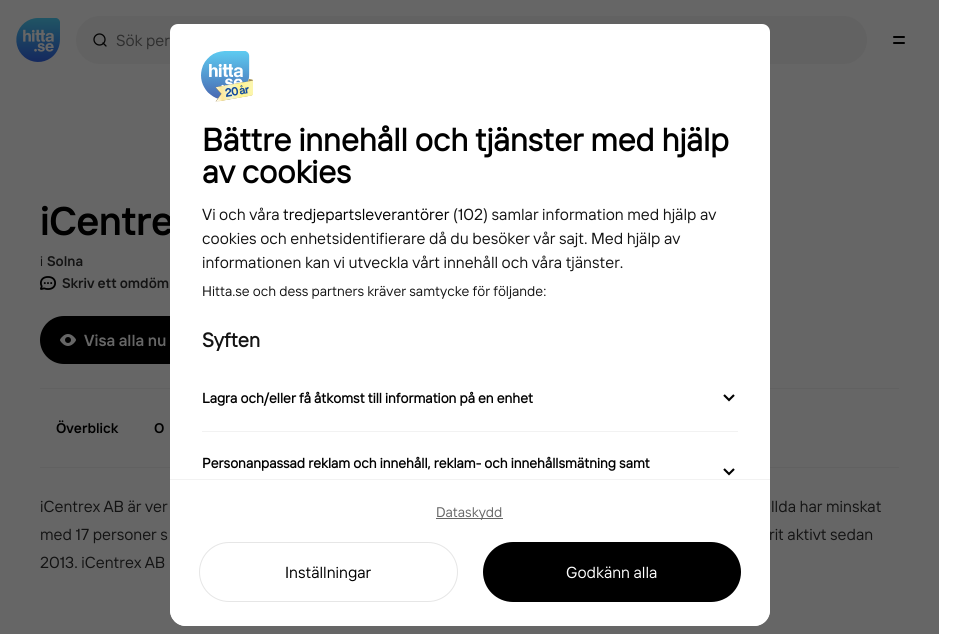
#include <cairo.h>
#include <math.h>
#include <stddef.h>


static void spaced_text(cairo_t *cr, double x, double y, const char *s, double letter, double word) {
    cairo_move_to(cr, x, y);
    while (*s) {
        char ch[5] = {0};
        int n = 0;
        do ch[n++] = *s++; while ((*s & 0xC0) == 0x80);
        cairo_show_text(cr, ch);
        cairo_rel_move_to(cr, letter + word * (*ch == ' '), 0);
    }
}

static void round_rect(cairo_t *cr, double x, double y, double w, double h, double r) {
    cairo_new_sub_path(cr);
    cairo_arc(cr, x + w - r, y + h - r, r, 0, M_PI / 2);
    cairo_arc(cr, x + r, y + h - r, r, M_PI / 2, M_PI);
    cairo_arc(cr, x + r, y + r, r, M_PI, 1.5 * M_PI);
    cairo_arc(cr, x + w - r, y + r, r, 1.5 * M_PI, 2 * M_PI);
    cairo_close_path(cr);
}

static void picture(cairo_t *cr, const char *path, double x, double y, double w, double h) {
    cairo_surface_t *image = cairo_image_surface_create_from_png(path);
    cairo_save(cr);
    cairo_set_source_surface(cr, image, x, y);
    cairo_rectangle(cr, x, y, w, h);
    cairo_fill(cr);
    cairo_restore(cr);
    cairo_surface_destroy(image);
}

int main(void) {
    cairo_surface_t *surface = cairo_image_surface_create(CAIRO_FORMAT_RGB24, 954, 634);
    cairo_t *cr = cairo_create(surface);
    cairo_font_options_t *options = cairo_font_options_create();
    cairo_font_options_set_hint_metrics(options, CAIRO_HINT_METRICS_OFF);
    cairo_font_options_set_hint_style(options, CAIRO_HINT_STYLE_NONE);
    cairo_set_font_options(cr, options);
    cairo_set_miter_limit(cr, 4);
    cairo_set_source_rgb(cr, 1, 1, 1);
    cairo_paint(cr);
    cairo_set_source_rgb(cr, 0.4, 0.4, 0.4);
    cairo_rectangle(cr, 0, 0, 939, 634);
    cairo_fill(cr);
    picture(cr, "img1.png", 16, 18, 44, 44);
    cairo_set_source_rgb(cr, 0.384, 0.384, 0.384);
    round_rect(cr, 76, 16, 791, 48, 24);
    cairo_fill(cr);
    cairo_new_path(cr);
    cairo_move_to(cr, 106, 46);
    cairo_line_to(cr, 103, 43);
    cairo_set_source_rgb(cr, 0.016, 0.016, 0.016);
    cairo_set_line_width(cr, 1.3);
    cairo_set_line_cap(cr, CAIRO_LINE_CAP_ROUND);
    cairo_set_line_join(cr, CAIRO_LINE_JOIN_ROUND);
    cairo_stroke(cr);
    cairo_arc(cr, 99.5, 39.5, 5.5, 0, 2 * M_PI);
    cairo_set_line_cap(cr, CAIRO_LINE_CAP_BUTT);
    cairo_set_line_join(cr, CAIRO_LINE_JOIN_MITER);
    cairo_stroke(cr);
    cairo_select_font_face(cr, "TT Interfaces", CAIRO_FONT_SLANT_NORMAL, CAIRO_FONT_WEIGHT_NORMAL);
    cairo_set_font_size(cr, 16);
    cairo_set_source_rgb(cr, 0.18, 0.18, 0.18);
    cairo_move_to(cr, 116, 46);
    cairo_show_text(cr, "Sök per");
    picture(cr, "img2.png", 893, 36, 12, 8);
    cairo_select_font_face(cr, "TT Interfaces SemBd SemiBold", CAIRO_FONT_SLANT_NORMAL, CAIRO_FONT_WEIGHT_NORMAL);
    cairo_set_font_size(cr, 40);
    cairo_set_source_rgb(cr, 0, 0, 0);
    spaced_text(cr, 40, 235, "iCentre", -0.75, 0);
    round_rect(cr, 40, 316, 190, 48, 24);
    cairo_fill(cr);
    cairo_set_source_rgb(cr, 0.38, 0.38, 0.38);
    cairo_rectangle(cr, 40, 388, 859, 1);
    cairo_fill(cr);
    cairo_rectangle(cr, 40, 467, 859, 1);
    cairo_fill(cr);
    cairo_set_source_rgb(cr, 1, 1, 1);
    cairo_new_path(cr);
    cairo_move_to(cr, 178, 24);
    cairo_line_to(cr, 762, 24);
    cairo_curve_to(cr, 766.5, 24, 770, 27.5, 770, 32);
    cairo_line_to(cr, 770, 610);
    cairo_curve_to(cr, 770, 619, 763, 626, 754, 626);
    cairo_line_to(cr, 186, 626);
    cairo_curve_to(cr, 177, 626, 170, 619, 170, 610);
    cairo_line_to(cr, 170, 32);
    cairo_curve_to(cr, 170, 27.5, 173.5, 24, 178, 24);
    cairo_close_path(cr);
    cairo_fill(cr);
    picture(cr, "img3.png", 201, 51, 52, 51);
    cairo_select_font_face(cr, "TT Interfaces", CAIRO_FONT_SLANT_NORMAL, CAIRO_FONT_WEIGHT_BOLD);
    cairo_set_font_size(cr, 32);
    cairo_set_source_rgb(cr, 0, 0, 0);
    cairo_move_to(cr, 202, 151);
    cairo_show_text(cr, "Bättre innehåll och tjänster med hjälp");
    cairo_move_to(cr, 202, 183);
    cairo_show_text(cr, "av cookies");
    cairo_select_font_face(cr, "TT Interfaces", CAIRO_FONT_SLANT_NORMAL, CAIRO_FONT_WEIGHT_NORMAL);
    cairo_set_font_size(cr, 16);
    cairo_set_source_rgb(cr, 0.078, 0.078, 0.078);
    cairo_move_to(cr, 202, 220);
    cairo_show_text(cr, "Vi och våra");
    cairo_set_source_rgb(cr, 0, 0, 0);
    cairo_move_to(cr, 283, 220);
    cairo_show_text(cr, "tredjepartsleverantörer");
    cairo_set_source_rgb(cr, 0.078, 0.078, 0.078);
    cairo_move_to(cr, 453, 220);
    cairo_show_text(cr, "(102) samlar information med hjälp av");
    cairo_move_to(cr, 202, 244);
    cairo_show_text(cr, "cookies och enhetsidentifierare då du besöker vår sajt. Med hjälp av");
    cairo_move_to(cr, 202, 268);
    cairo_show_text(cr, "informationen kan vi utveckla vårt innehåll och våra tjänster.");
    cairo_set_font_size(cr, 14);
    cairo_move_to(cr, 202, 296);
    cairo_show_text(cr, "Hitta.se och dess partners kräver samtycke för följande:");
    cairo_select_font_face(cr, "TT Interfaces", CAIRO_FONT_SLANT_NORMAL, CAIRO_FONT_WEIGHT_BOLD);
    cairo_set_font_size(cr, 20);
    cairo_move_to(cr, 202, 347);
    cairo_show_text(cr, "Syften");
    cairo_set_source_rgb(cr, 0.949, 0.949, 0.949);
    cairo_rectangle(cr, 202, 431, 536, 1);
    cairo_fill(cr);
    cairo_set_font_size(cr, 14);
    cairo_set_source_rgb(cr, 0, 0, 0);
    cairo_move_to(cr, 202, 403);
    cairo_show_text(cr, "Lagra och/eller få åtkomst till information på en enhet");
    cairo_new_path(cr);
    cairo_move_to(cr, 724, 395);
    cairo_line_to(cr, 729, 400);
    cairo_line_to(cr, 734, 395);
    cairo_set_line_width(cr, 2.1);
    cairo_stroke(cr);
    cairo_move_to(cr, 202, 468);
    cairo_show_text(cr, "Personanpassad reklam och innehåll, reklam- och innehållsmätning samt");
    cairo_new_path(cr);
    cairo_move_to(cr, 724, 469);
    cairo_line_to(cr, 729, 474);
    cairo_line_to(cr, 734, 469);
    cairo_stroke(cr);
    cairo_set_source_rgb(cr, 1, 1, 1);
    cairo_new_path(cr);
    cairo_move_to(cr, 170, 479);
    cairo_line_to(cr, 770, 479);
    cairo_line_to(cr, 770, 610);
    cairo_curve_to(cr, 770, 619, 763, 626, 754, 626);
    cairo_line_to(cr, 186, 626);
    cairo_curve_to(cr, 177, 626, 170, 619, 170, 610);
    cairo_close_path(cr);
    cairo_fill(cr);
    cairo_set_source_rgb(cr, 0.949, 0.949, 0.949);
    cairo_rectangle(cr, 170, 479, 600, 1);
    cairo_fill(cr);
    cairo_set_source_rgb(cr, 0.4, 0.4, 0.4);
    cairo_rectangle(cr, 436, 518, 67, 1);
    cairo_fill(cr);
    cairo_select_font_face(cr, "TT Interfaces", CAIRO_FONT_SLANT_NORMAL, CAIRO_FONT_WEIGHT_NORMAL);
    cairo_move_to(cr, 436, 517);
    cairo_show_text(cr, "Dataskydd");
    round_rect(cr, 199.5, 542.5, 258, 59, 29.5);
    cairo_set_source_rgb(cr, 0.902, 0.902, 0.902);
    cairo_set_line_width(cr, 1);
    cairo_stroke(cr);
    cairo_set_font_size(cr, 16);
    cairo_set_source_rgb(cr, 0, 0, 0);
    cairo_move_to(cr, 285, 578);
    cairo_show_text(cr, "Inställningar");
    round_rect(cr, 483, 542, 258, 60, 30);
    cairo_fill(cr);
    cairo_set_source_rgb(cr, 1, 1, 1);
    cairo_move_to(cr, 566, 578);
    cairo_show_text(cr, "Godkänn alla");
    cairo_set_font_size(cr, 14);
    cairo_set_source_rgb(cr, 0.078, 0.078, 0.078);
    cairo_move_to(cr, 40, 266);
    cairo_show_text(cr, "i");
    cairo_select_font_face(cr, "TT Interfaces SemBd SemiBold", CAIRO_FONT_SLANT_NORMAL, CAIRO_FONT_WEIGHT_NORMAL);
    cairo_move_to(cr, 47, 266);
    cairo_show_text(cr, "Solna");
    picture(cr, "img4.png", 40, 276, 16, 14);
    cairo_move_to(cr, 62, 288);
    cairo_show_text(cr, "Skriv ett omdöm");
    picture(cr, "img5.png", 60, 334, 16, 12);
    cairo_set_font_size(cr, 16);
    cairo_set_source_rgb(cr, 0.4, 0.4, 0.4);
    cairo_move_to(cr, 84, 346);
    cairo_show_text(cr, "Visa alla nu");
    cairo_set_font_size(cr, 14);
    cairo_set_source_rgb(cr, 0, 0, 0);
    cairo_move_to(cr, 56, 433);
    cairo_show_text(cr, "Överblick");
    cairo_move_to(cr, 154, 433);
    cairo_show_text(cr, "O");
    cairo_select_font_face(cr, "TT Interfaces", CAIRO_FONT_SLANT_NORMAL, CAIRO_FONT_WEIGHT_NORMAL);
    cairo_set_font_size(cr, 16);
    cairo_set_source_rgb(cr, 0.078, 0.078, 0.078);
    cairo_move_to(cr, 40, 512);
    cairo_show_text(cr, "iCentrex AB är ver");
    cairo_move_to(cr, 771, 512);
    cairo_show_text(cr, "llda har minskat");
    cairo_move_to(cr, 40, 540);
    cairo_show_text(cr, "med 17 personer s");
    cairo_move_to(cr, 769, 540);
    cairo_show_text(cr, "rit aktivt sedan");
    cairo_move_to(cr, 40, 568);
    cairo_show_text(cr, "2013. iCentrex AB");
    cairo_surface_write_to_png(surface, "page.png");
    cairo_font_options_destroy(options);
    cairo_destroy(cr);
    cairo_surface_destroy(surface);
    return 0;
}
